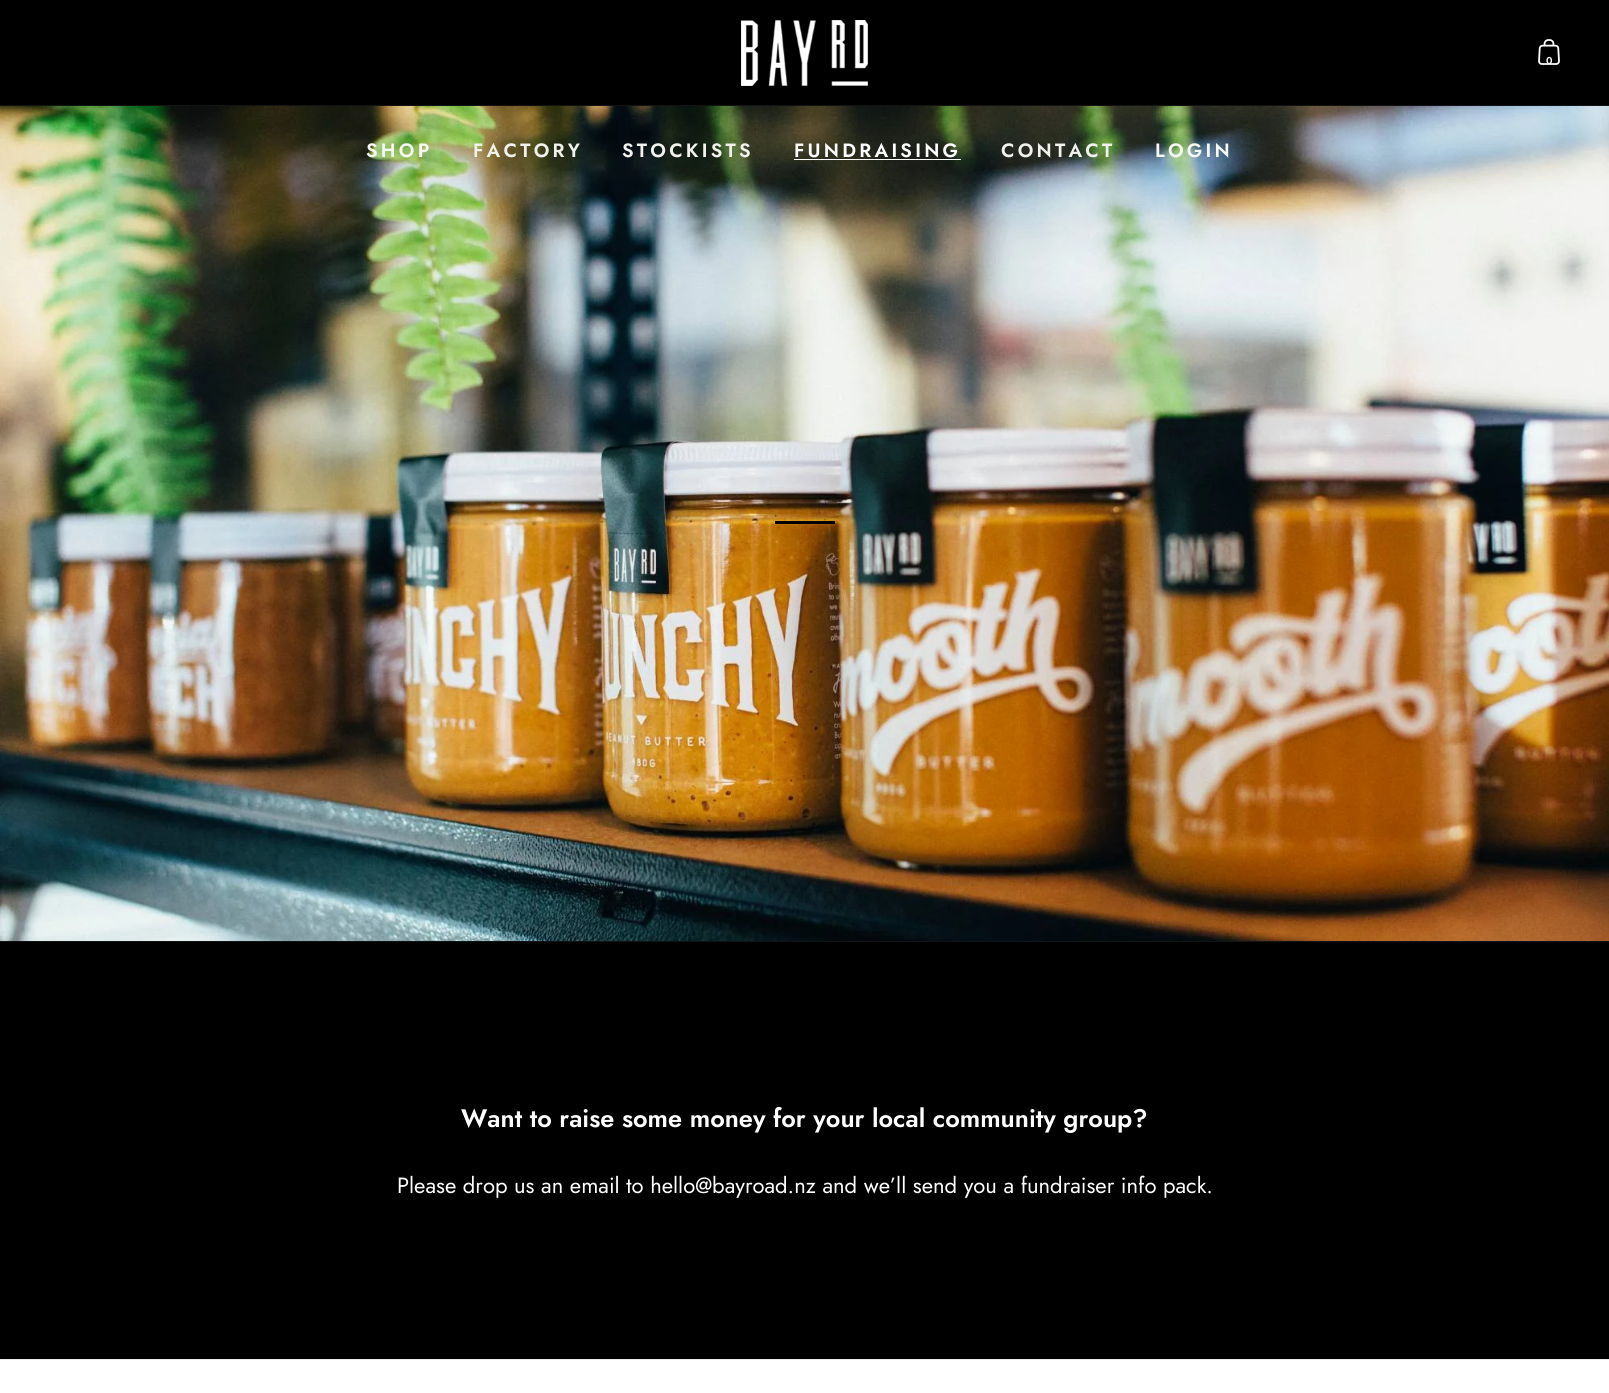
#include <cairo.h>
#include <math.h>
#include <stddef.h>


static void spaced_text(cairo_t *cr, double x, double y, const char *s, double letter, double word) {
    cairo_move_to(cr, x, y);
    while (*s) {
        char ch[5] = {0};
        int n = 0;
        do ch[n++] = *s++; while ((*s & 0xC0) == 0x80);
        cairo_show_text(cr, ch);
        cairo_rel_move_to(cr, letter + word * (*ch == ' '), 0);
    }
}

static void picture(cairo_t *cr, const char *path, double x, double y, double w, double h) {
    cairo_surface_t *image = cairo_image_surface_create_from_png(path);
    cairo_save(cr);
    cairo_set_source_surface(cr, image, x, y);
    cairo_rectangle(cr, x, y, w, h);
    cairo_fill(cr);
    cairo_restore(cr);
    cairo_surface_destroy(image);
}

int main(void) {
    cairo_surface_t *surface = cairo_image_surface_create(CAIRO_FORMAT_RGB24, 1609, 1393);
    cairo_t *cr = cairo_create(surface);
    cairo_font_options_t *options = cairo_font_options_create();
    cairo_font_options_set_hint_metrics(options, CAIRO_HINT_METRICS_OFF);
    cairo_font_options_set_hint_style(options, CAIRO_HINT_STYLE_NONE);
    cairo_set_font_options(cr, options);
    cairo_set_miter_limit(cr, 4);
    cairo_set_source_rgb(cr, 0, 0, 0);
    cairo_paint(cr);
    cairo_set_source_rgb(cr, 0.078, 0.078, 0.078);
    cairo_rectangle(cr, 0, 105, 1609, 1);
    cairo_fill(cr);
    picture(cr, "img1.png", 741, 20, 127, 66);
    picture(cr, "img2.png", 1538, 39, 22, 26);
    cairo_select_font_face(cr, "Jost SemiBold", CAIRO_FONT_SLANT_NORMAL, CAIRO_FONT_WEIGHT_NORMAL);
    cairo_set_font_size(cr, 10);
    cairo_set_source_rgb(cr, 1, 1, 1);
    cairo_move_to(cr, 1546, 64);
    cairo_show_text(cr, "0");
    picture(cr, "img3.png", 0, 106, 1609, 835);
    cairo_set_font_size(cr, 19.25);
    cairo_set_source_rgb(cr, 0.961, 0.973, 0.949);
    spaced_text(cr, 366, 157, "SHOP", 3.25, 0);
    cairo_set_source_rgb(cr, 0.945, 0.945, 0.933);
    spaced_text(cr, 473, 157, "FACTORY", 3.25, 0);
    spaced_text(cr, 622, 157, "STOCKISTS", 3.25, 0);
    cairo_set_source_rgb(cr, 1, 1, 1);
    spaced_text(cr, 794, 157, "FUNDRAISING", 3.25, 0);
    cairo_rectangle(cr, 794, 159, 167, 1);
    cairo_fill(cr);
    cairo_set_source_rgb(cr, 0.945, 0.945, 0.933);
    spaced_text(cr, 1001, 157, "CONTACT", 3.25, 0);
    cairo_set_source_rgb(cr, 0.961, 0.973, 0.949);
    spaced_text(cr, 1155, 157, "LOGIN", 3.25, 0);
    cairo_set_source_rgb(cr, 0, 0, 0);
    cairo_rectangle(cr, 775, 521, 60, 3);
    cairo_fill(cr);
    cairo_set_source_rgb(cr, 0.078, 0.078, 0.078);
    cairo_rectangle(cr, 0, 941, 1609, 1);
    cairo_fill(cr);
    cairo_set_font_size(cr, 25.3);
    cairo_set_source_rgb(cr, 1, 1, 1);
    cairo_move_to(cr, 461, 1127);
    cairo_show_text(cr, "Want to raise some money for your local community group?");
    cairo_select_font_face(cr, "Jost", CAIRO_FONT_SLANT_NORMAL, CAIRO_FONT_WEIGHT_NORMAL);
    cairo_set_font_size(cr, 22);
    cairo_move_to(cr, 397, 1193);
    cairo_show_text(cr, "Please drop us an email to hello@bayroad.nz and we’ll send you a fundraiser info pack.");
    cairo_rectangle(cr, 0, 1360, 1609, 33);
    cairo_fill(cr);
    cairo_set_source_rgb(cr, 0.922, 0.922, 0.922);
    cairo_rectangle(cr, 0, 1359, 1609, 1);
    cairo_fill(cr);
    cairo_surface_write_to_png(surface, "page.png");
    cairo_font_options_destroy(options);
    cairo_destroy(cr);
    cairo_surface_destroy(surface);
    return 0;
}
